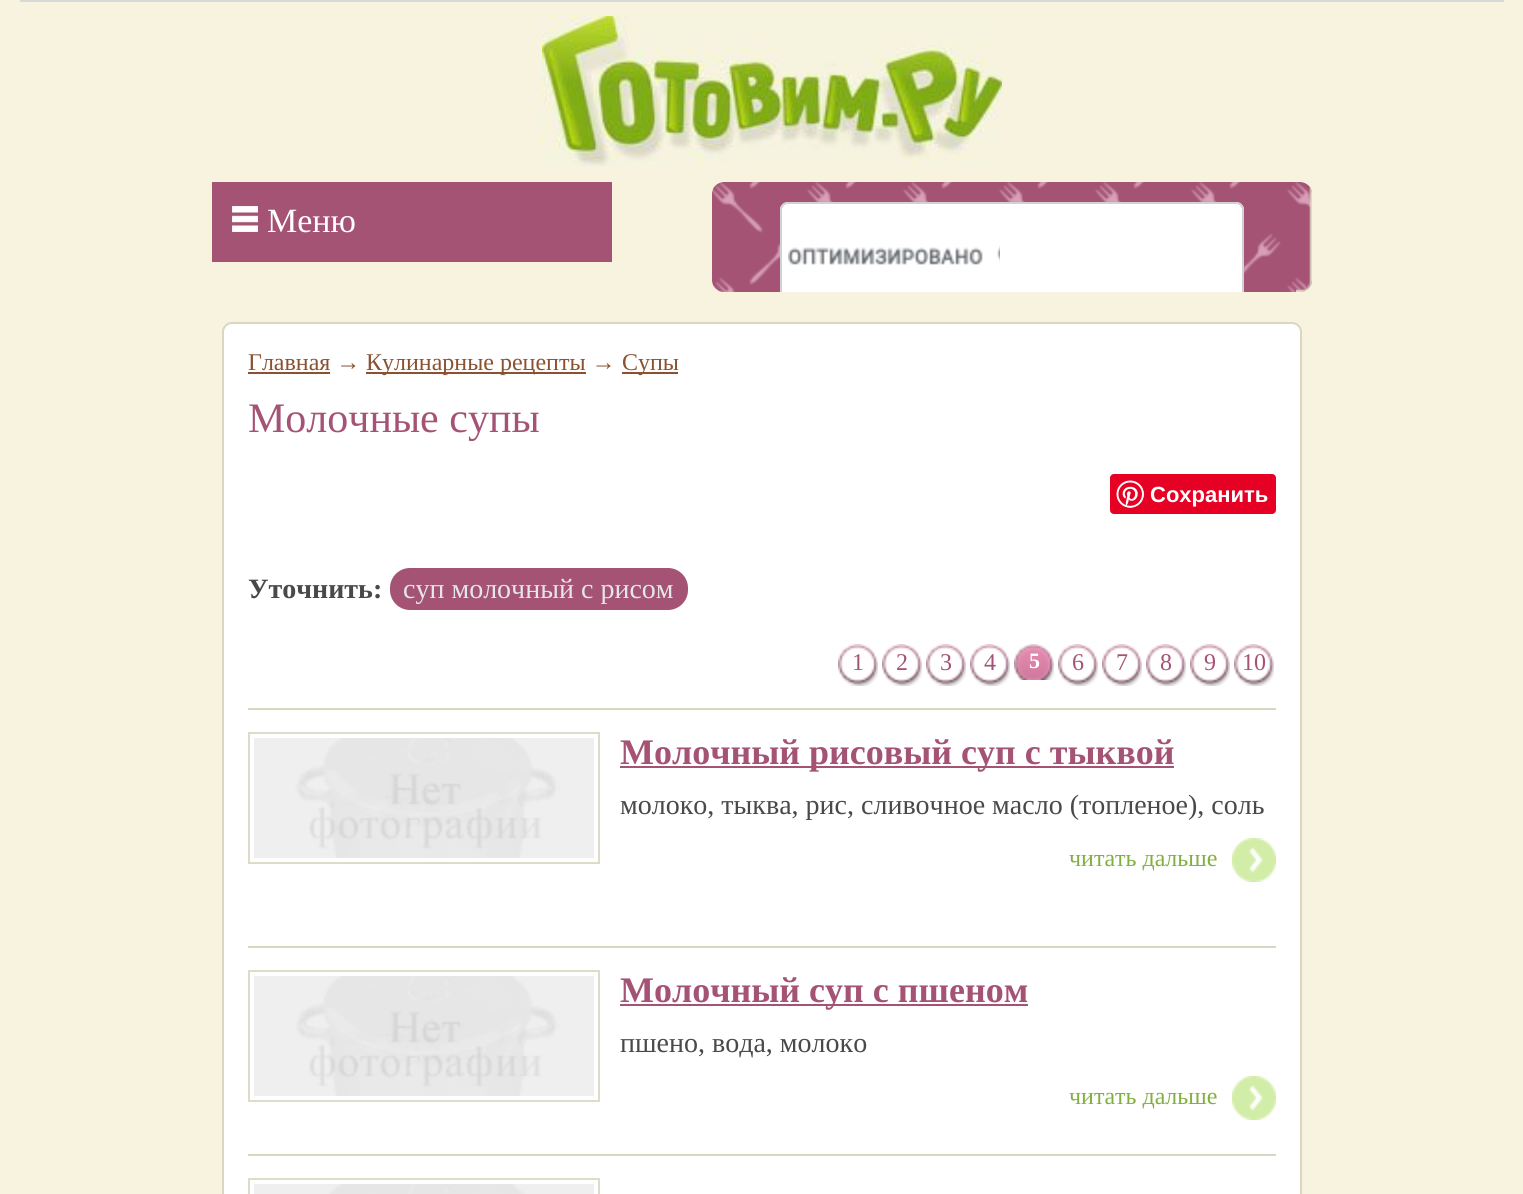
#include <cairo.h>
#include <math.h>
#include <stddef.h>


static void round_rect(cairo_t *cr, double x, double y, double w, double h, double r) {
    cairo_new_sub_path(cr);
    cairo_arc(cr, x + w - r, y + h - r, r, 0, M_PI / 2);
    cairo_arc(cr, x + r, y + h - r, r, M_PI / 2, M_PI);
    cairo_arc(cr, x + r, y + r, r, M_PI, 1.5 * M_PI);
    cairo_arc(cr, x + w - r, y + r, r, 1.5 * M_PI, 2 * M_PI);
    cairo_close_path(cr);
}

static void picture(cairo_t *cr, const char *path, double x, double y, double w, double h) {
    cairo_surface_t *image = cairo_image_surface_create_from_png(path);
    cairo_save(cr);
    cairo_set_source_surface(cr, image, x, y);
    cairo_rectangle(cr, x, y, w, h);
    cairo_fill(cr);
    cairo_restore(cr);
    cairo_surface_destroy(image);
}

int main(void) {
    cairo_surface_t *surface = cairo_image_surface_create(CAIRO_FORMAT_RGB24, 1523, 1194);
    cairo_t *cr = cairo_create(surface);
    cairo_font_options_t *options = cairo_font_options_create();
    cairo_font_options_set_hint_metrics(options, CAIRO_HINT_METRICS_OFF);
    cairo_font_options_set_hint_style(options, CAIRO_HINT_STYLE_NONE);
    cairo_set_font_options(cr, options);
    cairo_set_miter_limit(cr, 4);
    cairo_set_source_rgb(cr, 0.965, 0.953, 0.871);
    cairo_paint(cr);
    cairo_set_source_rgb(cr, 0.847, 0.847, 0.847);
    cairo_rectangle(cr, 20, 0, 1484, 2);
    cairo_fill(cr);
    picture(cr, "img1.png", 542, 16, 460, 150);
    cairo_set_source_rgb(cr, 0.643, 0.325, 0.459);
    cairo_rectangle(cr, 212, 182, 400, 80);
    cairo_fill(cr);
    picture(cr, "img2.png", 232, 206, 26, 26);
    cairo_select_font_face(cr, "Liberation Serif", CAIRO_FONT_SLANT_NORMAL, CAIRO_FONT_WEIGHT_NORMAL);
    cairo_set_font_size(cr, 34);
    cairo_set_source_rgb(cr, 1, 1, 1);
    cairo_move_to(cr, 267, 232);
    cairo_show_text(cr, "Меню");
    picture(cr, "img3.png", 712, 182, 600, 110);
    picture(cr, "img4.png", 1296, 187, 16, 105);
    cairo_new_path(cr);
    cairo_move_to(cr, 788, 202);
    cairo_line_to(cr, 1236, 202);
    cairo_curve_to(cr, 1240.5, 202, 1244, 205.5, 1244, 210);
    cairo_line_to(cr, 1244, 292);
    cairo_line_to(cr, 780, 292);
    cairo_line_to(cr, 780, 210);
    cairo_curve_to(cr, 780, 205.5, 783.5, 202, 788, 202);
    cairo_close_path(cr);
    cairo_fill(cr);
    cairo_save(cr);
    cairo_rectangle(cr, 212, 182, 1100, 110);
    cairo_clip(cr);
    round_rect(cr, 781, 203, 462, 110, 7);
    cairo_set_source_rgb(cr, 0.824, 0.824, 0.824);
    cairo_stroke(cr);
    cairo_restore(cr);
    picture(cr, "img5.png", 788, 245, 212, 20);
    round_rect(cr, 223, 323, 1078, 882, 9);
    cairo_fill_preserve(cr);
    cairo_set_source_rgb(cr, 0.851, 0.843, 0.757);
    cairo_stroke(cr);
    cairo_set_font_size(cr, 24);
    cairo_set_source_rgb(cr, 0.545, 0.322, 0.196);
    cairo_move_to(cr, 248, 370);
    cairo_show_text(cr, "Главная →");
    cairo_rectangle(cr, 248, 372, 82, 2);
    cairo_fill(cr);
    cairo_rectangle(cr, 366, 372, 220, 2);
    cairo_fill(cr);
    cairo_move_to(cr, 366, 370);
    cairo_show_text(cr, "Кулинарные рецепты →");
    cairo_rectangle(cr, 622, 372, 56, 2);
    cairo_fill(cr);
    cairo_move_to(cr, 622, 370);
    cairo_show_text(cr, "Супы");
    cairo_set_font_size(cr, 42);
    cairo_set_source_rgb(cr, 0.643, 0.325, 0.459);
    cairo_move_to(cr, 248, 432);
    cairo_show_text(cr, "Молочные супы");
    cairo_set_source_rgb(cr, 0.902, 0, 0.137);
    round_rect(cr, 1110, 474, 166, 40, 4);
    cairo_fill(cr);
    picture(cr, "img6.png", 1116, 480, 28, 28);
    cairo_select_font_face(cr, "Liberation Sans", CAIRO_FONT_SLANT_NORMAL, CAIRO_FONT_WEIGHT_BOLD);
    cairo_set_font_size(cr, 22);
    cairo_set_source_rgb(cr, 1, 1, 1);
    cairo_move_to(cr, 1150, 502);
    cairo_show_text(cr, "Сохранить");
    cairo_select_font_face(cr, "Liberation Serif", CAIRO_FONT_SLANT_NORMAL, CAIRO_FONT_WEIGHT_BOLD);
    cairo_set_font_size(cr, 28);
    cairo_set_source_rgb(cr, 0.286, 0.286, 0.286);
    cairo_move_to(cr, 248, 598);
    cairo_show_text(cr, "Уточнить:");
    cairo_set_source_rgb(cr, 0.643, 0.325, 0.459);
    round_rect(cr, 390, 568, 298, 42, 20);
    cairo_fill(cr);
    cairo_select_font_face(cr, "Liberation Serif", CAIRO_FONT_SLANT_NORMAL, CAIRO_FONT_WEIGHT_NORMAL);
    cairo_set_source_rgb(cr, 0.902, 0.902, 0.902);
    cairo_move_to(cr, 403, 598);
    cairo_show_text(cr, "суп молочный с рисом");
    picture(cr, "img7.png", 838, 644, 40, 42);
    cairo_set_font_size(cr, 24);
    cairo_set_source_rgb(cr, 0.643, 0.325, 0.459);
    cairo_move_to(cr, 852, 670);
    cairo_show_text(cr, "1");
    picture(cr, "img7.png", 882, 644, 40, 42);
    cairo_move_to(cr, 896, 670);
    cairo_show_text(cr, "2");
    picture(cr, "img7.png", 926, 644, 40, 42);
    cairo_move_to(cr, 940, 670);
    cairo_show_text(cr, "3");
    picture(cr, "img7.png", 970, 644, 40, 42);
    cairo_move_to(cr, 984, 670);
    cairo_show_text(cr, "4");
    picture(cr, "img8.png", 1014, 644, 40, 36);
    cairo_select_font_face(cr, "Liberation Serif", CAIRO_FONT_SLANT_NORMAL, CAIRO_FONT_WEIGHT_BOLD);
    cairo_set_font_size(cr, 22);
    cairo_set_source_rgb(cr, 1, 1, 1);
    cairo_move_to(cr, 1029, 668);
    cairo_show_text(cr, "5");
    picture(cr, "img7.png", 1058, 644, 40, 42);
    cairo_select_font_face(cr, "Liberation Serif", CAIRO_FONT_SLANT_NORMAL, CAIRO_FONT_WEIGHT_NORMAL);
    cairo_set_font_size(cr, 24);
    cairo_set_source_rgb(cr, 0.643, 0.325, 0.459);
    cairo_move_to(cr, 1072, 670);
    cairo_show_text(cr, "6");
    picture(cr, "img7.png", 1102, 644, 40, 42);
    cairo_move_to(cr, 1116, 670);
    cairo_show_text(cr, "7");
    picture(cr, "img7.png", 1146, 644, 40, 42);
    cairo_move_to(cr, 1160, 670);
    cairo_show_text(cr, "8");
    picture(cr, "img7.png", 1190, 644, 40, 42);
    cairo_move_to(cr, 1204, 670);
    cairo_show_text(cr, "9");
    picture(cr, "img7.png", 1234, 644, 40, 42);
    cairo_move_to(cr, 1242, 670);
    cairo_show_text(cr, "10");
    cairo_set_source_rgb(cr, 0.851, 0.843, 0.757);
    cairo_rectangle(cr, 248, 708, 1028, 2);
    cairo_fill(cr);
    cairo_rectangle(cr, 249, 733, 350, 130);
    cairo_set_source_rgb(cr, 0.871, 0.859, 0.784);
    cairo_stroke(cr);
    picture(cr, "img9.png", 254, 738, 340, 120);
    cairo_set_source_rgb(cr, 0.643, 0.325, 0.459);
    cairo_rectangle(cr, 620, 766, 554, 2);
    cairo_fill(cr);
    cairo_select_font_face(cr, "Liberation Serif", CAIRO_FONT_SLANT_NORMAL, CAIRO_FONT_WEIGHT_BOLD);
    cairo_set_font_size(cr, 36);
    cairo_move_to(cr, 620, 764);
    cairo_show_text(cr, "Молочный рисовый суп с тыквой");
    cairo_select_font_face(cr, "Liberation Serif", CAIRO_FONT_SLANT_NORMAL, CAIRO_FONT_WEIGHT_NORMAL);
    cairo_set_font_size(cr, 28);
    cairo_set_source_rgb(cr, 0.286, 0.286, 0.286);
    cairo_move_to(cr, 620, 814);
    cairo_show_text(cr, "молоко, тыква, рис, сливочное масло (топленое), соль");
    cairo_set_font_size(cr, 24);
    cairo_set_source_rgb(cr, 0.51, 0.69, 0.247);
    cairo_move_to(cr, 1069, 866);
    cairo_show_text(cr, "читать дальше");
    picture(cr, "img10.png", 1232, 838, 44, 44);
    cairo_set_source_rgb(cr, 0.851, 0.843, 0.757);
    cairo_rectangle(cr, 248, 946, 1028, 2);
    cairo_fill(cr);
    cairo_rectangle(cr, 249, 971, 350, 130);
    cairo_set_source_rgb(cr, 0.871, 0.859, 0.784);
    cairo_stroke(cr);
    picture(cr, "img9.png", 254, 976, 340, 120);
    cairo_set_source_rgb(cr, 0.643, 0.325, 0.459);
    cairo_rectangle(cr, 620, 1004, 408, 2);
    cairo_fill(cr);
    cairo_select_font_face(cr, "Liberation Serif", CAIRO_FONT_SLANT_NORMAL, CAIRO_FONT_WEIGHT_BOLD);
    cairo_set_font_size(cr, 36);
    cairo_move_to(cr, 620, 1002);
    cairo_show_text(cr, "Молочный суп с пшеном");
    cairo_select_font_face(cr, "Liberation Serif", CAIRO_FONT_SLANT_NORMAL, CAIRO_FONT_WEIGHT_NORMAL);
    cairo_set_font_size(cr, 28);
    cairo_set_source_rgb(cr, 0.286, 0.286, 0.286);
    cairo_move_to(cr, 620, 1052);
    cairo_show_text(cr, "пшено, вода, молоко");
    cairo_set_font_size(cr, 24);
    cairo_set_source_rgb(cr, 0.51, 0.69, 0.247);
    cairo_move_to(cr, 1069, 1104);
    cairo_show_text(cr, "читать дальше");
    picture(cr, "img10.png", 1232, 1076, 44, 44);
    cairo_set_source_rgb(cr, 0.851, 0.843, 0.757);
    cairo_rectangle(cr, 248, 1154, 1028, 2);
    cairo_fill(cr);
    cairo_rectangle(cr, 249, 1179, 350, 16);
    cairo_set_source_rgb(cr, 0.871, 0.859, 0.784);
    cairo_stroke(cr);
    picture(cr, "img11.png", 254, 1184, 340, 10);
    cairo_surface_write_to_png(surface, "page.png");
    cairo_font_options_destroy(options);
    cairo_destroy(cr);
    cairo_surface_destroy(surface);
    return 0;
}
